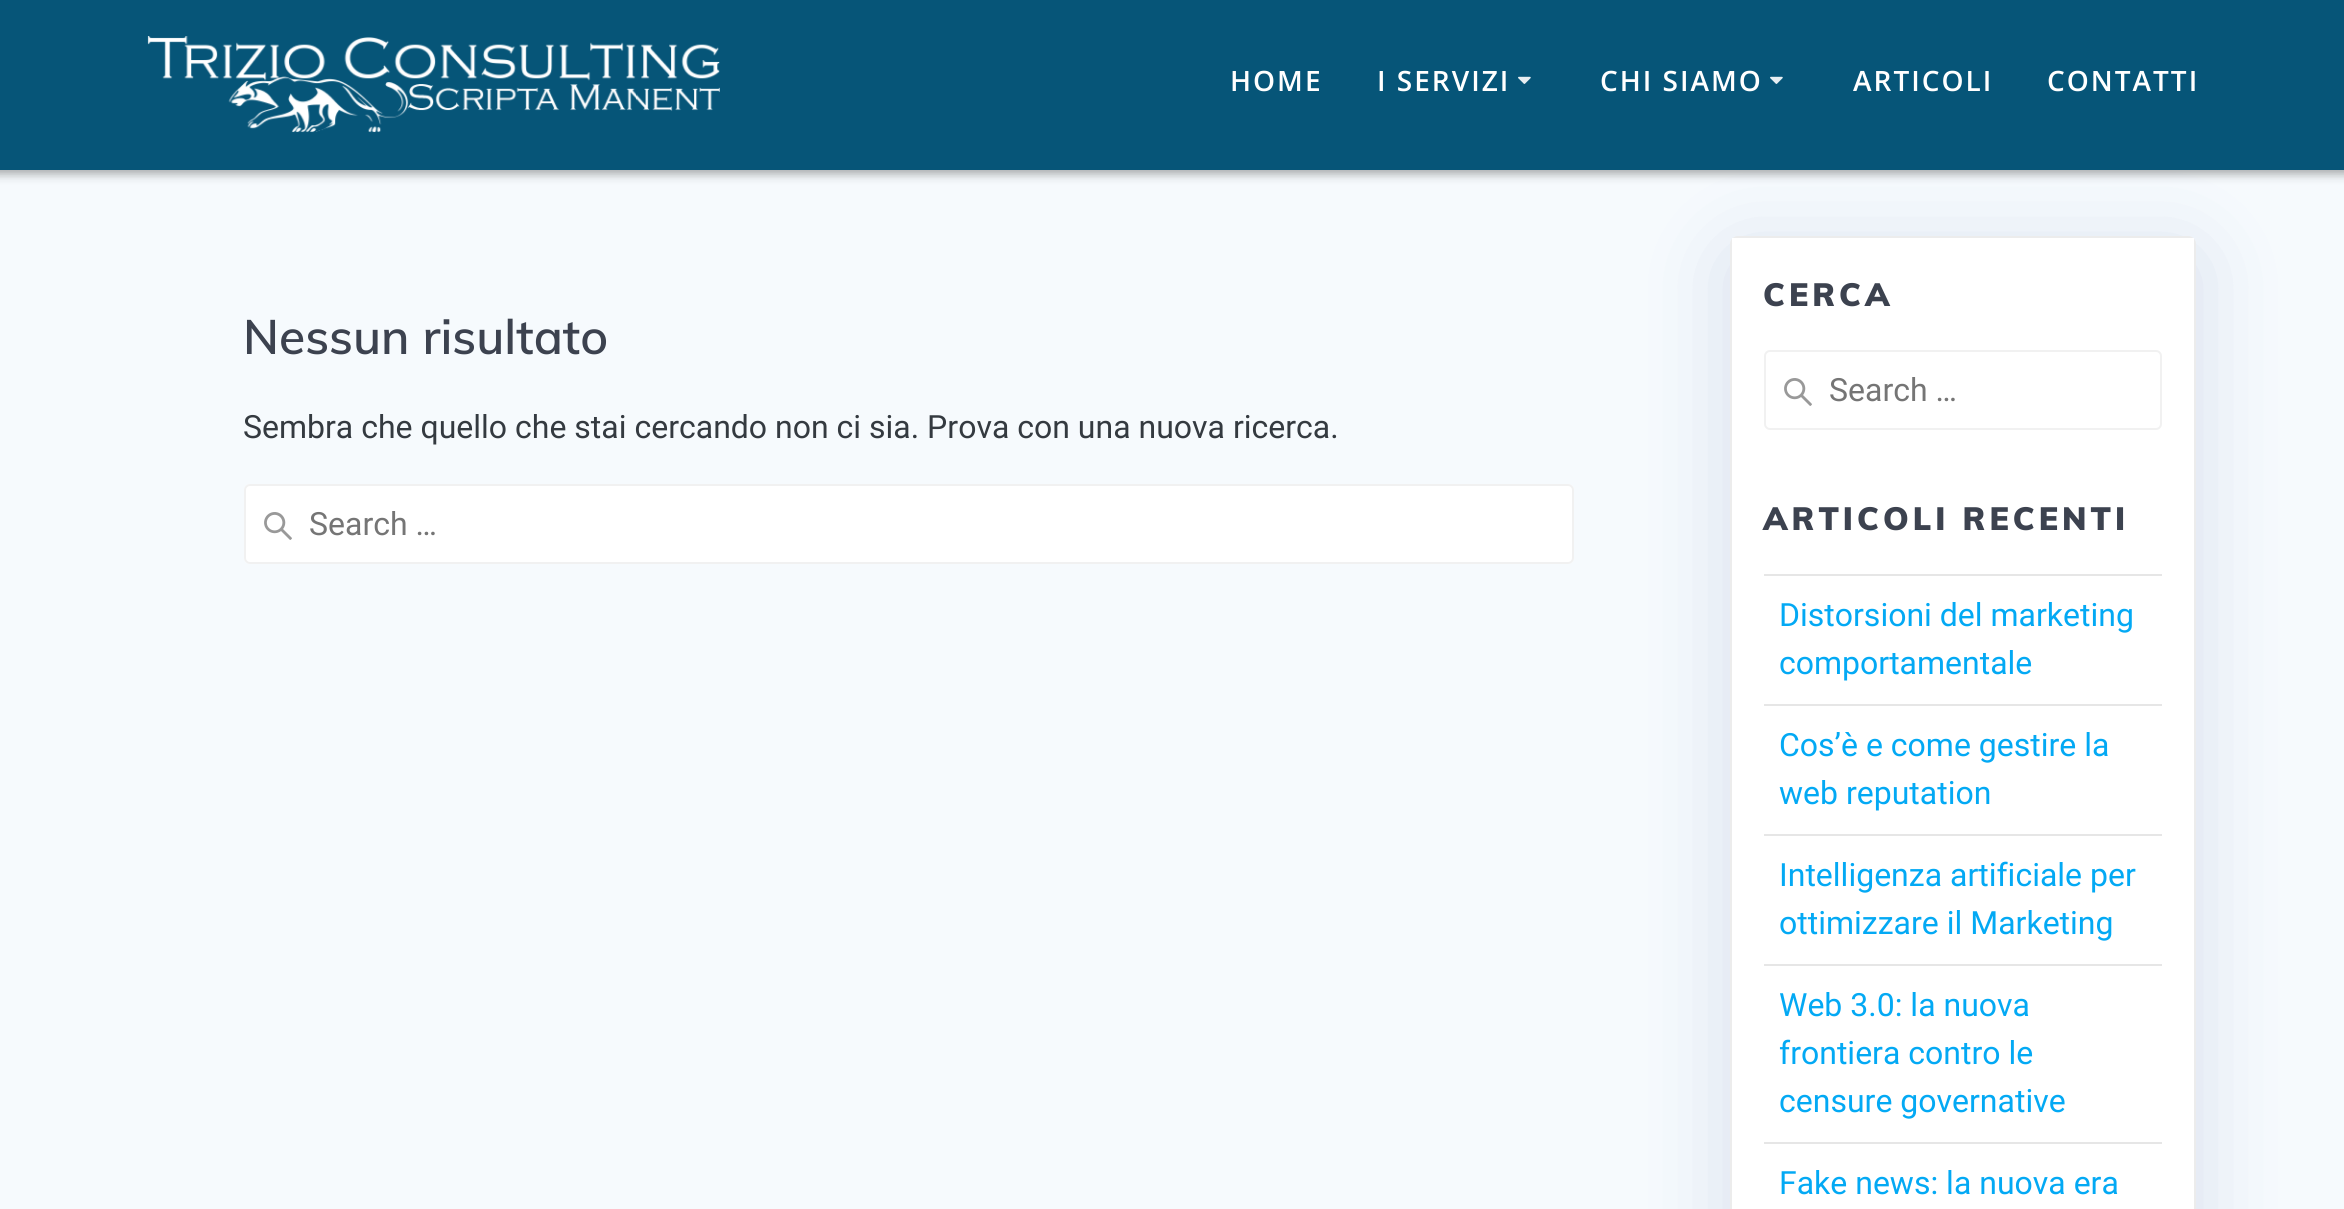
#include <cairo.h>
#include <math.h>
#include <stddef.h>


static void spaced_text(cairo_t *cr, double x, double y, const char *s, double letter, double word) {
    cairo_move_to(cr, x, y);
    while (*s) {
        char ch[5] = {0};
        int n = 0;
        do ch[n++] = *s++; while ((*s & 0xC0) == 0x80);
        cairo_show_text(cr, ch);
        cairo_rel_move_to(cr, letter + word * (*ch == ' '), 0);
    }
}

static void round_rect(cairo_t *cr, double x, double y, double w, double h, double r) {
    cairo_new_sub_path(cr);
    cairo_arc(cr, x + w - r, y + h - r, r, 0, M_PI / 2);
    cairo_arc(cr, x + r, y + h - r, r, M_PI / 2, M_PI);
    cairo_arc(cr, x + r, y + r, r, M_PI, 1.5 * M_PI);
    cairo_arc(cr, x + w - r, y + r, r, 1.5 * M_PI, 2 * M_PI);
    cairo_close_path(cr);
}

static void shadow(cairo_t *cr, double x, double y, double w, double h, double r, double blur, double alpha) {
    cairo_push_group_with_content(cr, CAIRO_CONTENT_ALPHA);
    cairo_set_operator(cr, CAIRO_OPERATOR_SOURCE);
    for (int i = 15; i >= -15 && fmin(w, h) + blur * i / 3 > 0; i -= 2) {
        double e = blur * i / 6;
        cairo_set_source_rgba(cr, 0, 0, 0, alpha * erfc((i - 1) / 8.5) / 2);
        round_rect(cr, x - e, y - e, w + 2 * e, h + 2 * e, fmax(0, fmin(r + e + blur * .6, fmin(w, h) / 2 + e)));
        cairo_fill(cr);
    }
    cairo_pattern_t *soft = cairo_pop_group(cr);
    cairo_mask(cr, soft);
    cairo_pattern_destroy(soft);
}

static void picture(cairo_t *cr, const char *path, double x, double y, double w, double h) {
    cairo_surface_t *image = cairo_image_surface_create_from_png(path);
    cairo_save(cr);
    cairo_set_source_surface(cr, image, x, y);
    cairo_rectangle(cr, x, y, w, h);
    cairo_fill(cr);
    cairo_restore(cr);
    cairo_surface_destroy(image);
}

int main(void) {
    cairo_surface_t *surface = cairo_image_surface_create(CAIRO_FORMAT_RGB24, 2344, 1209);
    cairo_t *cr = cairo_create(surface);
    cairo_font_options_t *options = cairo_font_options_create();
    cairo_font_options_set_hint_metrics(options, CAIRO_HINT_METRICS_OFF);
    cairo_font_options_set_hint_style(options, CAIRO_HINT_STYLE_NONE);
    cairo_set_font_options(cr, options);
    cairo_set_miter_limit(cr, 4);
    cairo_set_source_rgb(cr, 0.961, 0.98, 0.992);
    cairo_paint(cr);
    cairo_set_source_rgb(cr, 0, 0, 0);
    shadow(cr, -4, -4, 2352, 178, 0, 5, 0.33);
    cairo_set_source_rgb(cr, 0.137, 0.271, 0.596);
    shadow(cr, 1730, 254, 466, 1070, 8, 45, 0.15);
    cairo_set_source_rgb(cr, 0.027, 0.333, 0.471);
    cairo_rectangle(cr, 0, 0, 2344, 170);
    cairo_fill(cr);
    picture(cr, "img1.png", 147, 36, 573, 97);
    cairo_select_font_face(cr, "Open Sans SemiBold", CAIRO_FONT_SLANT_NORMAL, CAIRO_FONT_WEIGHT_NORMAL);
    cairo_set_font_size(cr, 28);
    cairo_set_source_rgb(cr, 1, 1, 1);
    spaced_text(cr, 1230, 91, "HOME", 2, 0);
    spaced_text(cr, 1377, 91, "I SERVIZI", 2, 0);
    picture(cr, "img2.png", 1518, 76, 13, 8);
    spaced_text(cr, 1600, 91, "CHI SIAMO", 2, 0);
    picture(cr, "img2.png", 1770, 76, 13, 8);
    spaced_text(cr, 1853, 91, "ARTICOLI", 2, 0);
    spaced_text(cr, 2047, 91, "CONTATTI", 2, 0);
    cairo_select_font_face(cr, "Muli SemiBold", CAIRO_FONT_SLANT_NORMAL, CAIRO_FONT_WEIGHT_NORMAL);
    cairo_set_font_size(cr, 48);
    cairo_set_source_rgb(cr, 0.235, 0.259, 0.31);
    cairo_move_to(cr, 243, 354);
    cairo_show_text(cr, "Nessun risultato");
    cairo_select_font_face(cr, "Roboto", CAIRO_FONT_SLANT_NORMAL, CAIRO_FONT_WEIGHT_NORMAL);
    cairo_set_font_size(cr, 32);
    cairo_set_source_rgb(cr, 0.204, 0.227, 0.251);
    cairo_move_to(cr, 243, 438);
    cairo_show_text(cr, "Sembra che quello che stai cercando non ci sia. Prova con una nuova ricerca.");
    cairo_set_source_rgb(cr, 1, 1, 1);
    round_rect(cr, 244, 484, 1330, 80, 6);
    cairo_fill(cr);
    picture(cr, "img3.png", 264, 512, 28, 28);
    round_rect(cr, 245, 485, 1328, 78, 5);
    cairo_set_source_rgb(cr, 0.945, 0.945, 0.945);
    cairo_stroke(cr);
    cairo_set_source_rgb(cr, 0.459, 0.459, 0.459);
    cairo_move_to(cr, 309, 535);
    cairo_show_text(cr, "Search …");
    cairo_set_source_rgb(cr, 1, 1, 1);
    round_rect(cr, 1731, 237, 464, 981, 7);
    cairo_fill_preserve(cr);
    cairo_set_source_rgb(cr, 0.925, 0.925, 0.925);
    cairo_stroke(cr);
    cairo_set_source_rgb(cr, 1, 1, 1);
    cairo_rectangle(cr, 1732, 238, 462, 5);
    cairo_fill(cr);
    cairo_select_font_face(cr, "Muli Black", CAIRO_FONT_SLANT_NORMAL, CAIRO_FONT_WEIGHT_NORMAL);
    cairo_set_source_rgb(cr, 0.235, 0.259, 0.31);
    spaced_text(cr, 1763, 306, "CERCA", 4, 0);
    picture(cr, "img3.png", 1784, 378, 28, 28);
    round_rect(cr, 1765, 351, 396, 78, 5);
    cairo_set_source_rgb(cr, 0.945, 0.945, 0.945);
    cairo_stroke(cr);
    cairo_select_font_face(cr, "Roboto", CAIRO_FONT_SLANT_NORMAL, CAIRO_FONT_WEIGHT_NORMAL);
    cairo_set_source_rgb(cr, 0.459, 0.459, 0.459);
    cairo_move_to(cr, 1829, 401);
    cairo_show_text(cr, "Search …");
    cairo_select_font_face(cr, "Muli Black", CAIRO_FONT_SLANT_NORMAL, CAIRO_FONT_WEIGHT_NORMAL);
    cairo_set_source_rgb(cr, 0.235, 0.259, 0.31);
    spaced_text(cr, 1763, 530, "ARTICOLI RECENTI", 4, 0);
    cairo_set_source_rgb(cr, 0.902, 0.902, 0.902);
    cairo_rectangle(cr, 1764, 574, 398, 2);
    cairo_fill(cr);
    cairo_select_font_face(cr, "Roboto", CAIRO_FONT_SLANT_NORMAL, CAIRO_FONT_WEIGHT_NORMAL);
    cairo_set_source_rgb(cr, 0.012, 0.663, 0.957);
    cairo_move_to(cr, 1779, 626);
    cairo_show_text(cr, "Distorsioni del marketing");
    cairo_move_to(cr, 1779, 674);
    cairo_show_text(cr, "comportamentale");
    cairo_set_source_rgb(cr, 0.902, 0.902, 0.902);
    cairo_rectangle(cr, 1764, 704, 398, 2);
    cairo_fill(cr);
    cairo_set_source_rgb(cr, 0.012, 0.663, 0.957);
    cairo_move_to(cr, 1779, 756);
    cairo_show_text(cr, "Cos’è e come gestire la");
    cairo_move_to(cr, 1779, 804);
    cairo_show_text(cr, "web reputation");
    cairo_set_source_rgb(cr, 0.902, 0.902, 0.902);
    cairo_rectangle(cr, 1764, 834, 398, 2);
    cairo_fill(cr);
    cairo_set_source_rgb(cr, 0.012, 0.663, 0.957);
    cairo_move_to(cr, 1779, 886);
    cairo_show_text(cr, "Intelligenza artificiale per");
    cairo_move_to(cr, 1779, 934);
    cairo_show_text(cr, "ottimizzare il Marketing");
    cairo_set_source_rgb(cr, 0.902, 0.902, 0.902);
    cairo_rectangle(cr, 1764, 964, 398, 2);
    cairo_fill(cr);
    cairo_set_source_rgb(cr, 0.012, 0.663, 0.957);
    cairo_move_to(cr, 1779, 1016);
    cairo_show_text(cr, "Web 3.0: la nuova");
    cairo_move_to(cr, 1779, 1064);
    cairo_show_text(cr, "frontiera contro le");
    cairo_move_to(cr, 1779, 1112);
    cairo_show_text(cr, "censure governative");
    cairo_set_source_rgb(cr, 0.902, 0.902, 0.902);
    cairo_rectangle(cr, 1764, 1142, 398, 2);
    cairo_fill(cr);
    cairo_set_source_rgb(cr, 0.012, 0.663, 0.957);
    cairo_move_to(cr, 1779, 1194);
    cairo_show_text(cr, "Fake news: la nuova era");
    cairo_surface_write_to_png(surface, "page.png");
    cairo_font_options_destroy(options);
    cairo_destroy(cr);
    cairo_surface_destroy(surface);
    return 0;
}
